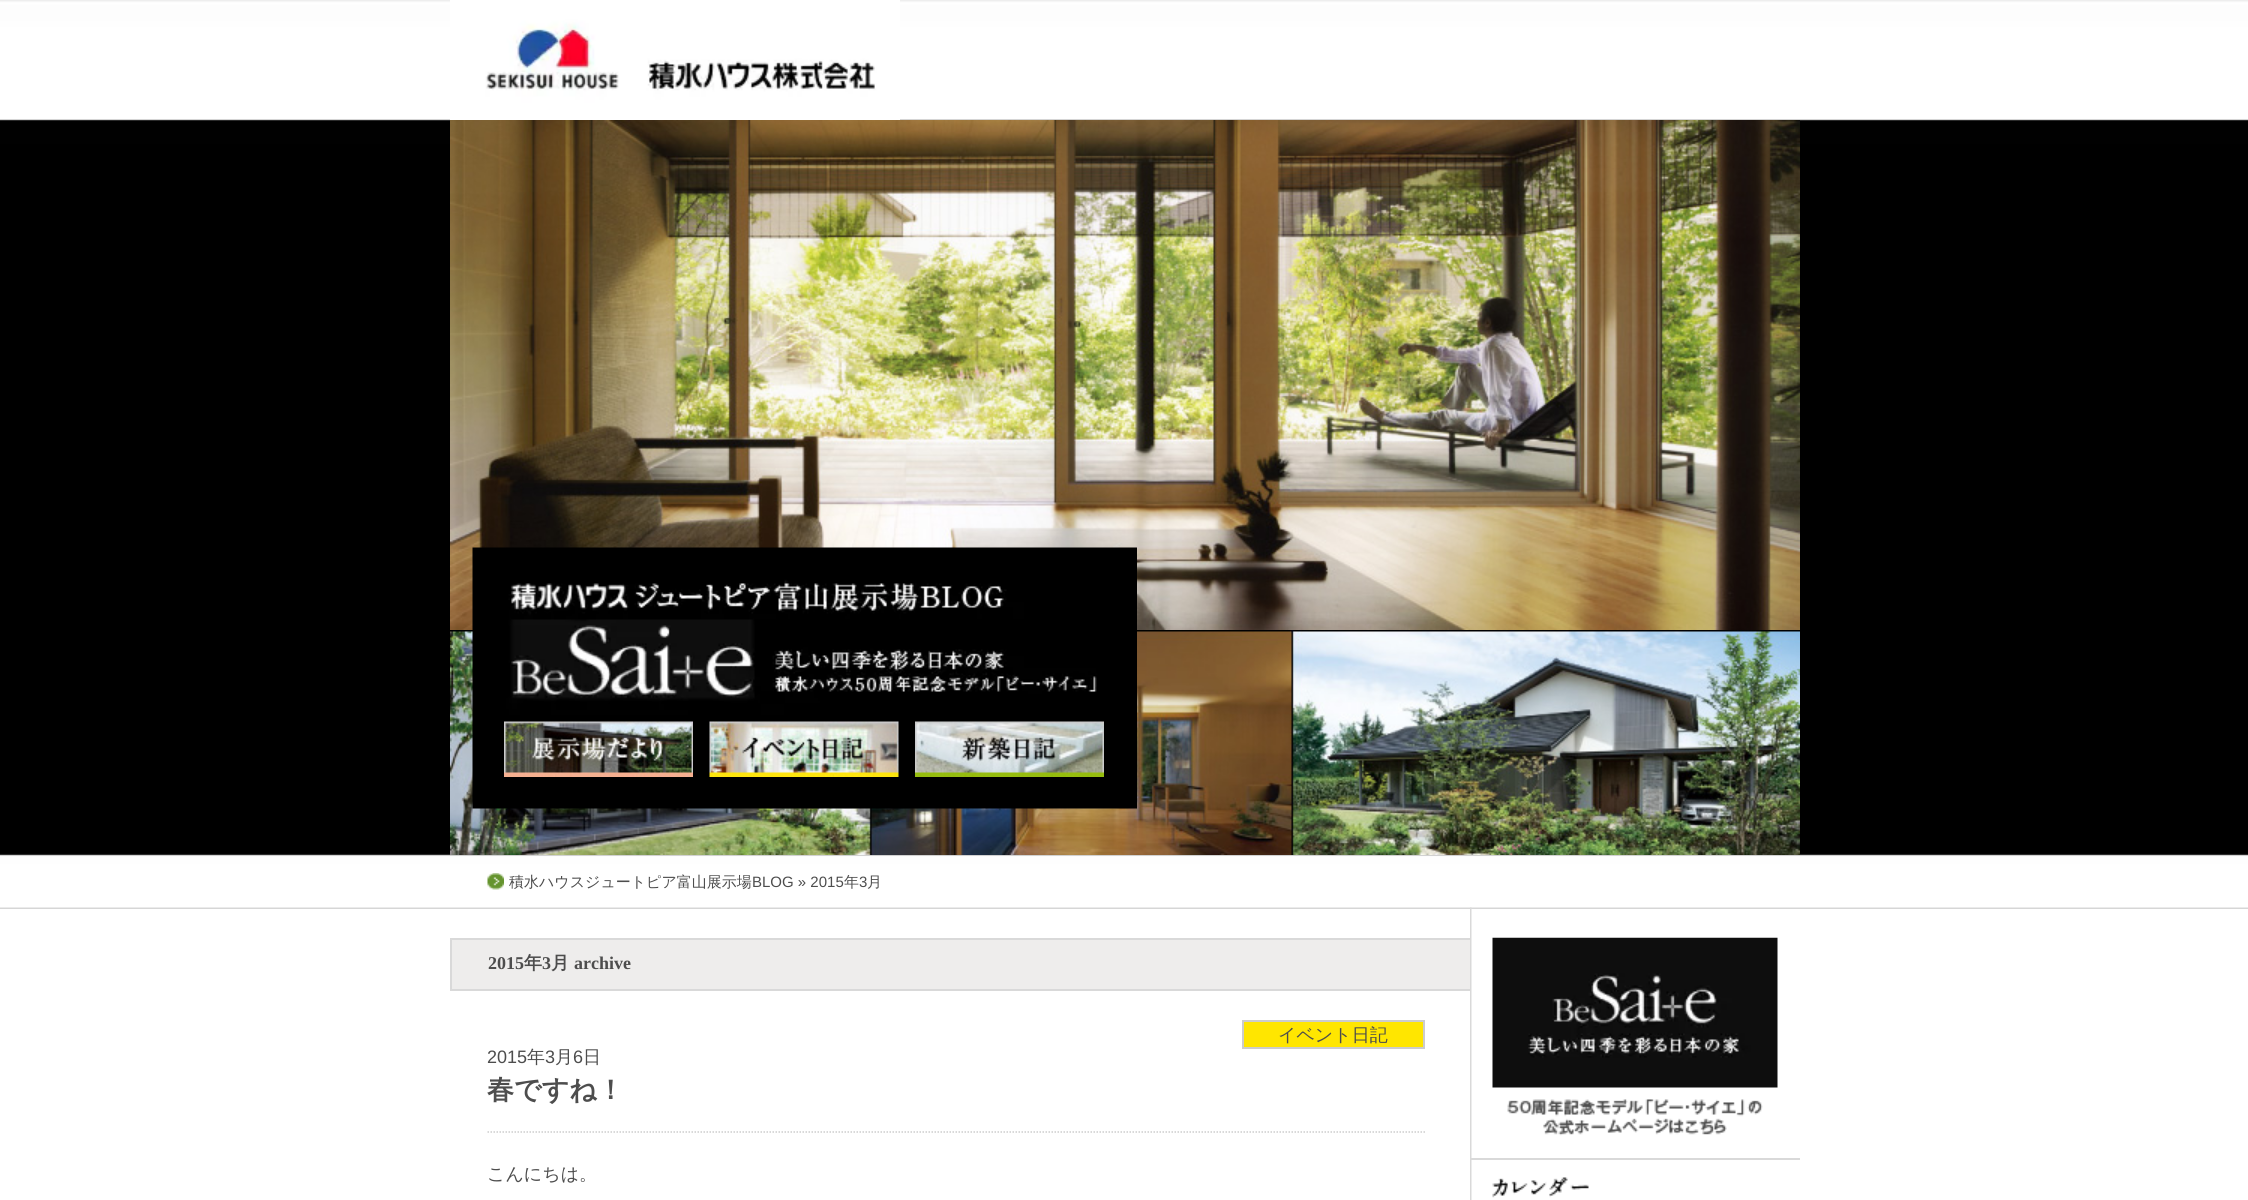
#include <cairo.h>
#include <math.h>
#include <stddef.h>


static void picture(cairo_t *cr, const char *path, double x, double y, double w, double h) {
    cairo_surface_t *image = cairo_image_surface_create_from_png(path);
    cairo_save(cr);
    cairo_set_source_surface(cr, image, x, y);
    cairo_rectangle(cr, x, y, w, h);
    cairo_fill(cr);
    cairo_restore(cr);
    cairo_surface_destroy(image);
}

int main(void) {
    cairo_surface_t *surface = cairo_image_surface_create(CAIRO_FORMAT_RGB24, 2248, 1200);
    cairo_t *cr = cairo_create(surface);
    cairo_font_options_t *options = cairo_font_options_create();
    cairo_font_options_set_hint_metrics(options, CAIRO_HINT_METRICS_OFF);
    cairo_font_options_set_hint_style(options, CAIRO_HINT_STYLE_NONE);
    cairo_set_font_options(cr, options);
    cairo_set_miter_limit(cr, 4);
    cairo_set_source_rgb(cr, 1, 1, 1);
    cairo_paint(cr);
    picture(cr, "img1.png", 0, 0, 2248, 909);
    picture(cr, "img2.png", 450, 0, 450, 120);
    picture(cr, "img3.png", 450, 630, 1350, 225);
    picture(cr, "img4.png", 450, 120, 1350, 510);
    picture(cr, "img5.png", 472, 547, 665, 262);
    picture(cr, "img6.png", 504, 721, 189, 56);
    picture(cr, "img7.png", 709, 721, 190, 56);
    picture(cr, "img8.png", 915, 721, 189, 56);
    picture(cr, "img9.png", 487, 873, 17, 17);
    cairo_select_font_face(cr, "WenQuanYi Zen Hei Medium", CAIRO_FONT_SLANT_NORMAL, CAIRO_FONT_WEIGHT_NORMAL);
    cairo_set_font_size(cr, 15);
    cairo_set_source_rgb(cr, 0.302, 0.302, 0.302);
    cairo_move_to(cr, 509, 887);
    cairo_show_text(cr, "積水ハウスジュートピア富山展示場");
    cairo_select_font_face(cr, "Liberation Sans", CAIRO_FONT_SLANT_NORMAL, CAIRO_FONT_WEIGHT_NORMAL);
    cairo_move_to(cr, 752, 887);
    cairo_show_text(cr, "BLOG » 2015");
    cairo_select_font_face(cr, "WenQuanYi Zen Hei Medium", CAIRO_FONT_SLANT_NORMAL, CAIRO_FONT_WEIGHT_NORMAL);
    cairo_move_to(cr, 844, 887);
    cairo_show_text(cr, "年");
    cairo_select_font_face(cr, "Liberation Sans", CAIRO_FONT_SLANT_NORMAL, CAIRO_FONT_WEIGHT_NORMAL);
    cairo_move_to(cr, 859, 887);
    cairo_show_text(cr, "3");
    cairo_select_font_face(cr, "WenQuanYi Zen Hei Medium", CAIRO_FONT_SLANT_NORMAL, CAIRO_FONT_WEIGHT_NORMAL);
    cairo_move_to(cr, 867, 887);
    cairo_show_text(cr, "月");
    picture(cr, "img10.png", 1470, 907, 2, 293);
    cairo_set_source_rgb(cr, 0.933, 0.929, 0.925);
    cairo_rectangle(cr, 452, 940, 1018, 49);
    cairo_fill(cr);
    cairo_set_source_rgb(cr, 0.851, 0.851, 0.851);
    cairo_rectangle(cr, 450, 938, 1020, 2);
    cairo_fill(cr);
    cairo_rectangle(cr, 450, 989, 1020, 2);
    cairo_fill(cr);
    cairo_rectangle(cr, 450, 938, 2, 52);
    cairo_fill(cr);
    cairo_select_font_face(cr, "Liberation Serif", CAIRO_FONT_SLANT_NORMAL, CAIRO_FONT_WEIGHT_BOLD);
    cairo_set_font_size(cr, 18);
    cairo_set_source_rgb(cr, 0.302, 0.302, 0.302);
    cairo_move_to(cr, 488, 969);
    cairo_show_text(cr, "2015");
    cairo_select_font_face(cr, "WenQuanYi Zen Hei", CAIRO_FONT_SLANT_NORMAL, CAIRO_FONT_WEIGHT_BOLD);
    cairo_move_to(cr, 524, 969);
    cairo_show_text(cr, "年");
    cairo_select_font_face(cr, "Liberation Serif", CAIRO_FONT_SLANT_NORMAL, CAIRO_FONT_WEIGHT_BOLD);
    cairo_move_to(cr, 542, 969);
    cairo_show_text(cr, "3");
    cairo_select_font_face(cr, "WenQuanYi Zen Hei", CAIRO_FONT_SLANT_NORMAL, CAIRO_FONT_WEIGHT_BOLD);
    cairo_move_to(cr, 551, 969);
    cairo_show_text(cr, "月");
    cairo_select_font_face(cr, "Liberation Serif", CAIRO_FONT_SLANT_NORMAL, CAIRO_FONT_WEIGHT_BOLD);
    cairo_move_to(cr, 574, 969);
    cairo_show_text(cr, "archive");
    cairo_set_source_rgb(cr, 1, 0.902, 0);
    cairo_rectangle(cr, 1243, 1021, 181, 27);
    cairo_fill_preserve(cr);
    cairo_set_source_rgb(cr, 0.8, 0.8, 0.8);
    cairo_stroke(cr);
    cairo_select_font_face(cr, "WenQuanYi Zen Hei Medium", CAIRO_FONT_SLANT_NORMAL, CAIRO_FONT_WEIGHT_NORMAL);
    cairo_set_source_rgb(cr, 0.302, 0.302, 0.302);
    cairo_move_to(cr, 1278, 1041);
    cairo_show_text(cr, "イベント日記");
    cairo_select_font_face(cr, "Liberation Sans", CAIRO_FONT_SLANT_NORMAL, CAIRO_FONT_WEIGHT_NORMAL);
    cairo_move_to(cr, 487, 1063);
    cairo_show_text(cr, "2015");
    cairo_select_font_face(cr, "WenQuanYi Zen Hei Medium", CAIRO_FONT_SLANT_NORMAL, CAIRO_FONT_WEIGHT_NORMAL);
    cairo_move_to(cr, 527, 1063);
    cairo_show_text(cr, "年");
    cairo_select_font_face(cr, "Liberation Sans", CAIRO_FONT_SLANT_NORMAL, CAIRO_FONT_WEIGHT_NORMAL);
    cairo_move_to(cr, 545, 1063);
    cairo_show_text(cr, "3");
    cairo_select_font_face(cr, "WenQuanYi Zen Hei Medium", CAIRO_FONT_SLANT_NORMAL, CAIRO_FONT_WEIGHT_NORMAL);
    cairo_move_to(cr, 555, 1063);
    cairo_show_text(cr, "月");
    cairo_select_font_face(cr, "Liberation Sans", CAIRO_FONT_SLANT_NORMAL, CAIRO_FONT_WEIGHT_NORMAL);
    cairo_move_to(cr, 573, 1063);
    cairo_show_text(cr, "6");
    cairo_select_font_face(cr, "WenQuanYi Zen Hei Medium", CAIRO_FONT_SLANT_NORMAL, CAIRO_FONT_WEIGHT_NORMAL);
    cairo_move_to(cr, 583, 1063);
    cairo_show_text(cr, "日");
    cairo_select_font_face(cr, "WenQuanYi Zen Hei", CAIRO_FONT_SLANT_NORMAL, CAIRO_FONT_WEIGHT_BOLD);
    cairo_set_font_size(cr, 27);
    cairo_move_to(cr, 487, 1099);
    cairo_show_text(cr, "春ですね！");
    cairo_new_path(cr);
    cairo_move_to(cr, 487.5, 1132);
    cairo_line_to(cr, 1425, 1132);
    cairo_set_source_rgb(cr, 0.8, 0.8, 0.8);
    cairo_set_line_width(cr, 1.5);
    cairo_set_dash(cr, (double[]){1.5, 1.5}, 2, 0);
    cairo_stroke(cr);
    cairo_select_font_face(cr, "WenQuanYi Zen Hei Medium", CAIRO_FONT_SLANT_NORMAL, CAIRO_FONT_WEIGHT_NORMAL);
    cairo_set_font_size(cr, 18);
    cairo_set_source_rgb(cr, 0.302, 0.302, 0.302);
    cairo_move_to(cr, 487, 1180);
    cairo_show_text(cr, "こんにちは。");
    picture(cr, "img11.png", 1492, 937, 286, 151);
    picture(cr, "img12.png", 1507, 1099, 256, 37);
    cairo_set_source_rgb(cr, 0.851, 0.851, 0.851);
    cairo_rectangle(cr, 1470, 1158, 330, 2);
    cairo_fill(cr);
    picture(cr, "img13.png", 1492, 1177, 97, 21);
    cairo_surface_write_to_png(surface, "page.png");
    cairo_font_options_destroy(options);
    cairo_destroy(cr);
    cairo_surface_destroy(surface);
    return 0;
}
